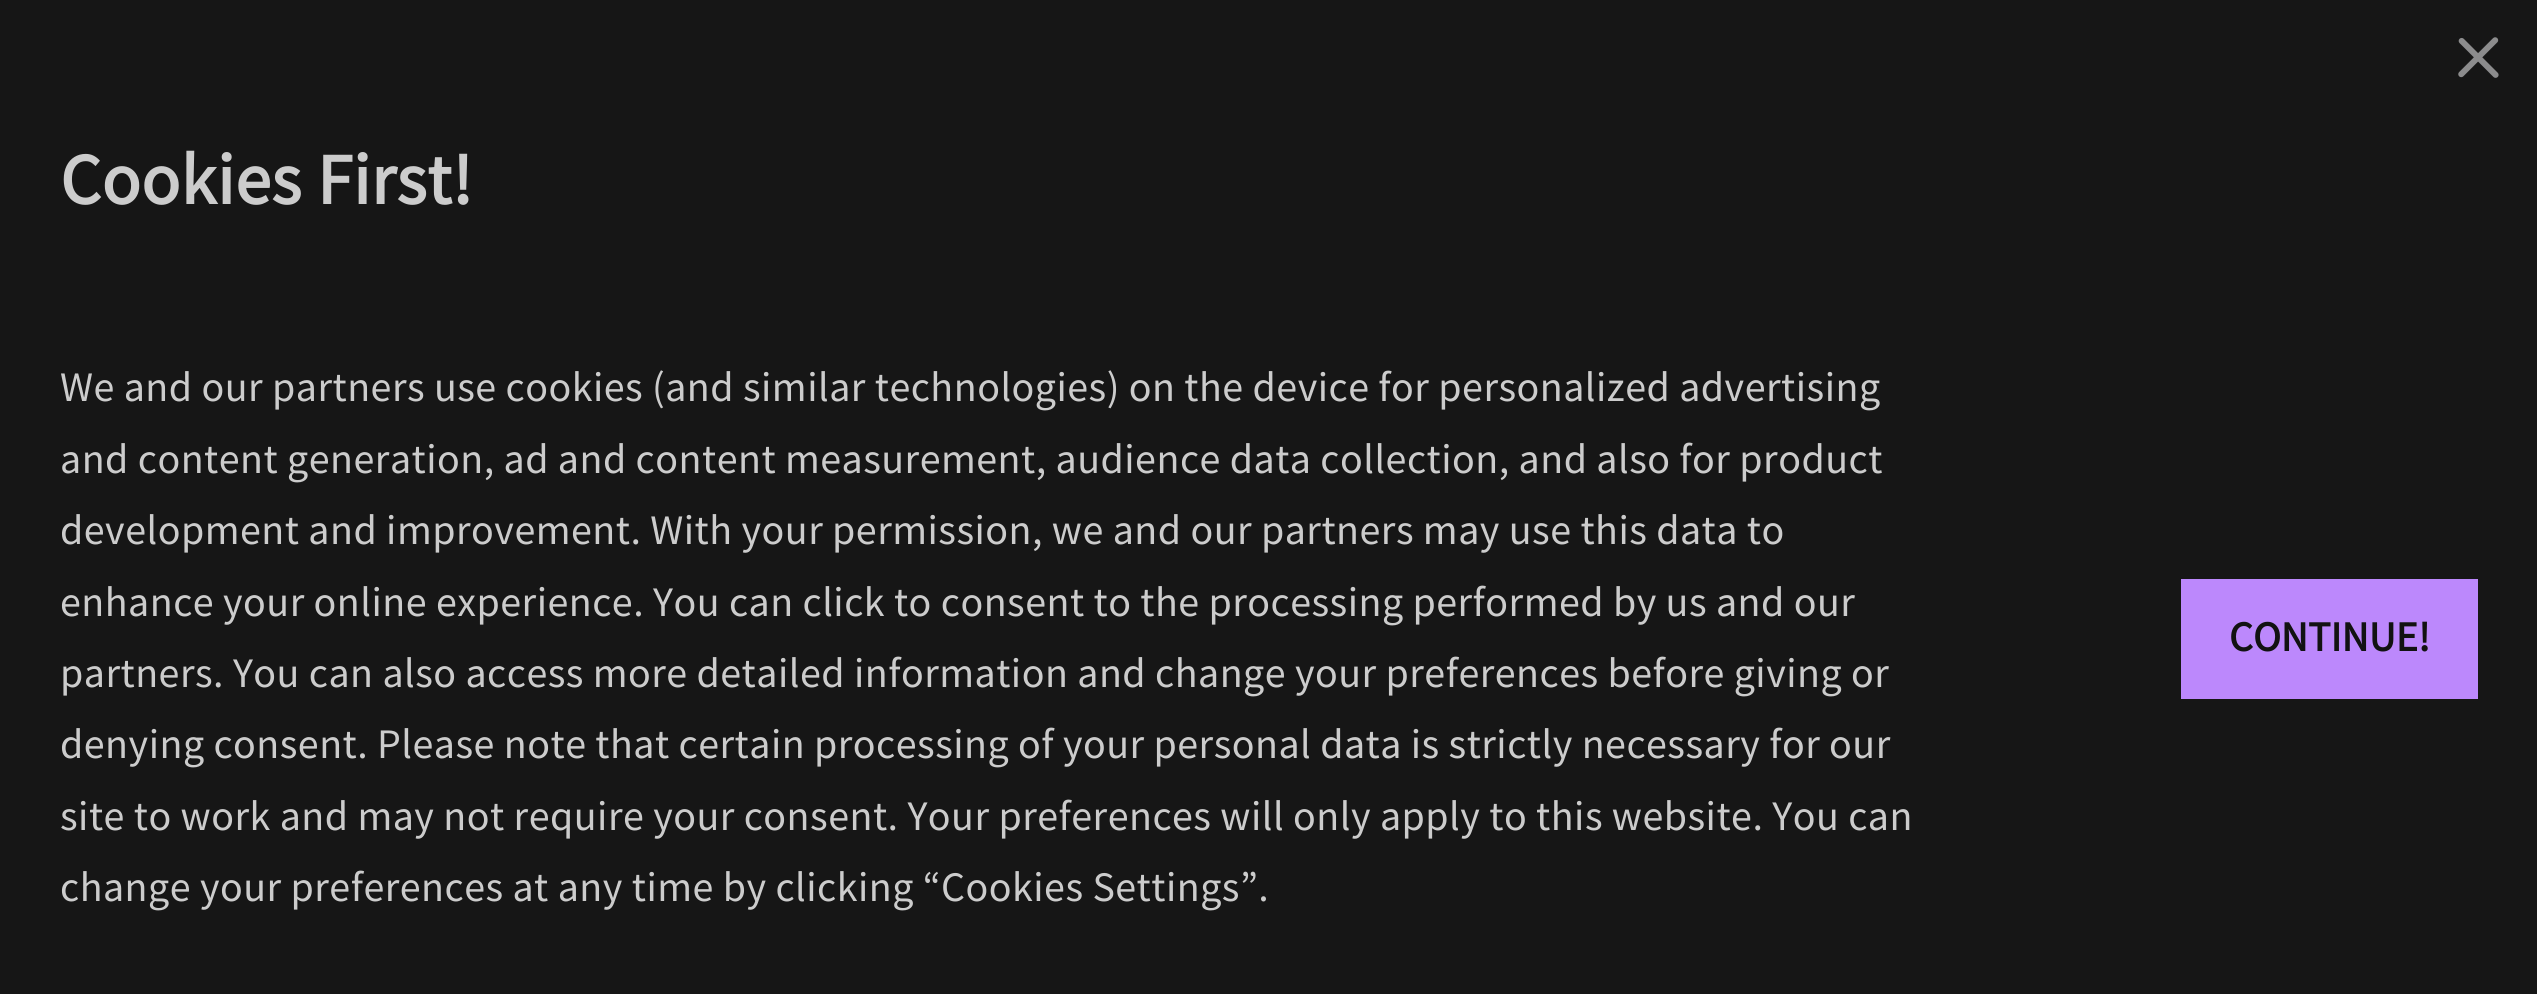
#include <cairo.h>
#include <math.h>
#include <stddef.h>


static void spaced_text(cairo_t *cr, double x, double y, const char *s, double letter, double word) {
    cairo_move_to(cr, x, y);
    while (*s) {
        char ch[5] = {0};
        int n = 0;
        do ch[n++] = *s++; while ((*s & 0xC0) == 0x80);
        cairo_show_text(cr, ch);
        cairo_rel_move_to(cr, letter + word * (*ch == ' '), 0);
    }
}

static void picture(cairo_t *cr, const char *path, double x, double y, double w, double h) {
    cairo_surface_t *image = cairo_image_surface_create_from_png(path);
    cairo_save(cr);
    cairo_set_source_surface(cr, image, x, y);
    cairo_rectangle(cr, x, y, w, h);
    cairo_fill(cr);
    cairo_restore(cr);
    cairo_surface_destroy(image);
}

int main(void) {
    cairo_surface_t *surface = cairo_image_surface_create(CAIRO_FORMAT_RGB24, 2537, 994);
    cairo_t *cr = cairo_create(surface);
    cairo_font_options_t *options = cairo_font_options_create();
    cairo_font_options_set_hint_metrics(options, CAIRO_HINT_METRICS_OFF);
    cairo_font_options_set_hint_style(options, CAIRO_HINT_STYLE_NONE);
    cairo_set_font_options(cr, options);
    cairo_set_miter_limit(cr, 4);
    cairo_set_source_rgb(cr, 0.086, 0.086, 0.086);
    cairo_paint(cr);
    picture(cr, "img1.png", 2458, 37, 41, 41);
    cairo_select_font_face(cr, "Source Sans Pro", CAIRO_FONT_SLANT_NORMAL, CAIRO_FONT_WEIGHT_BOLD);
    cairo_set_font_size(cr, 72);
    cairo_set_source_rgb(cr, 0.8, 0.8, 0.8);
    spaced_text(cr, 60, 204, "Cookies First!", 0.48, 0);
    cairo_select_font_face(cr, "Source Sans Pro", CAIRO_FONT_SLANT_NORMAL, CAIRO_FONT_WEIGHT_NORMAL);
    cairo_set_font_size(cr, 42);
    spaced_text(cr, 60, 401, "We and our partners use cookies (and similar technologies) on the device for personalized advertising", 0.48, 0);
    spaced_text(cr, 60, 473, "and content generation, ad and content measurement, audience data collection, and also for product", 0.48, 0);
    spaced_text(cr, 60, 544, "development and improvement. With your permission, we and our partners may use this data to", 0.48, 0);
    spaced_text(cr, 60, 616, "enhance your online experience. You can click to consent to the processing performed by us and our", 0.48, 0);
    spaced_text(cr, 60, 687, "partners. You can also access more detailed information and change your preferences before giving or", 0.48, 0);
    spaced_text(cr, 60, 758, "denying consent. Please note that certain processing of your personal data is strictly necessary for our", 0.48, 0);
    spaced_text(cr, 60, 830, "site to work and may not require your consent. Your preferences will only apply to this website. You can", 0.48, 0);
    spaced_text(cr, 60, 901, "change your preferences at any time by clicking “Cookies Settings”.", 0.48, 0);
    cairo_set_source_rgb(cr, 0.737, 0.533, 0.988);
    cairo_rectangle(cr, 2181, 579, 297, 120);
    cairo_fill(cr);
    cairo_select_font_face(cr, "Source Sans Pro", CAIRO_FONT_SLANT_NORMAL, CAIRO_FONT_WEIGHT_BOLD);
    cairo_set_source_rgb(cr, 0.071, 0.071, 0.071);
    cairo_move_to(cr, 2229, 651);
    cairo_show_text(cr, "CONTINUE!");
    cairo_surface_write_to_png(surface, "page.png");
    cairo_font_options_destroy(options);
    cairo_destroy(cr);
    cairo_surface_destroy(surface);
    return 0;
}
